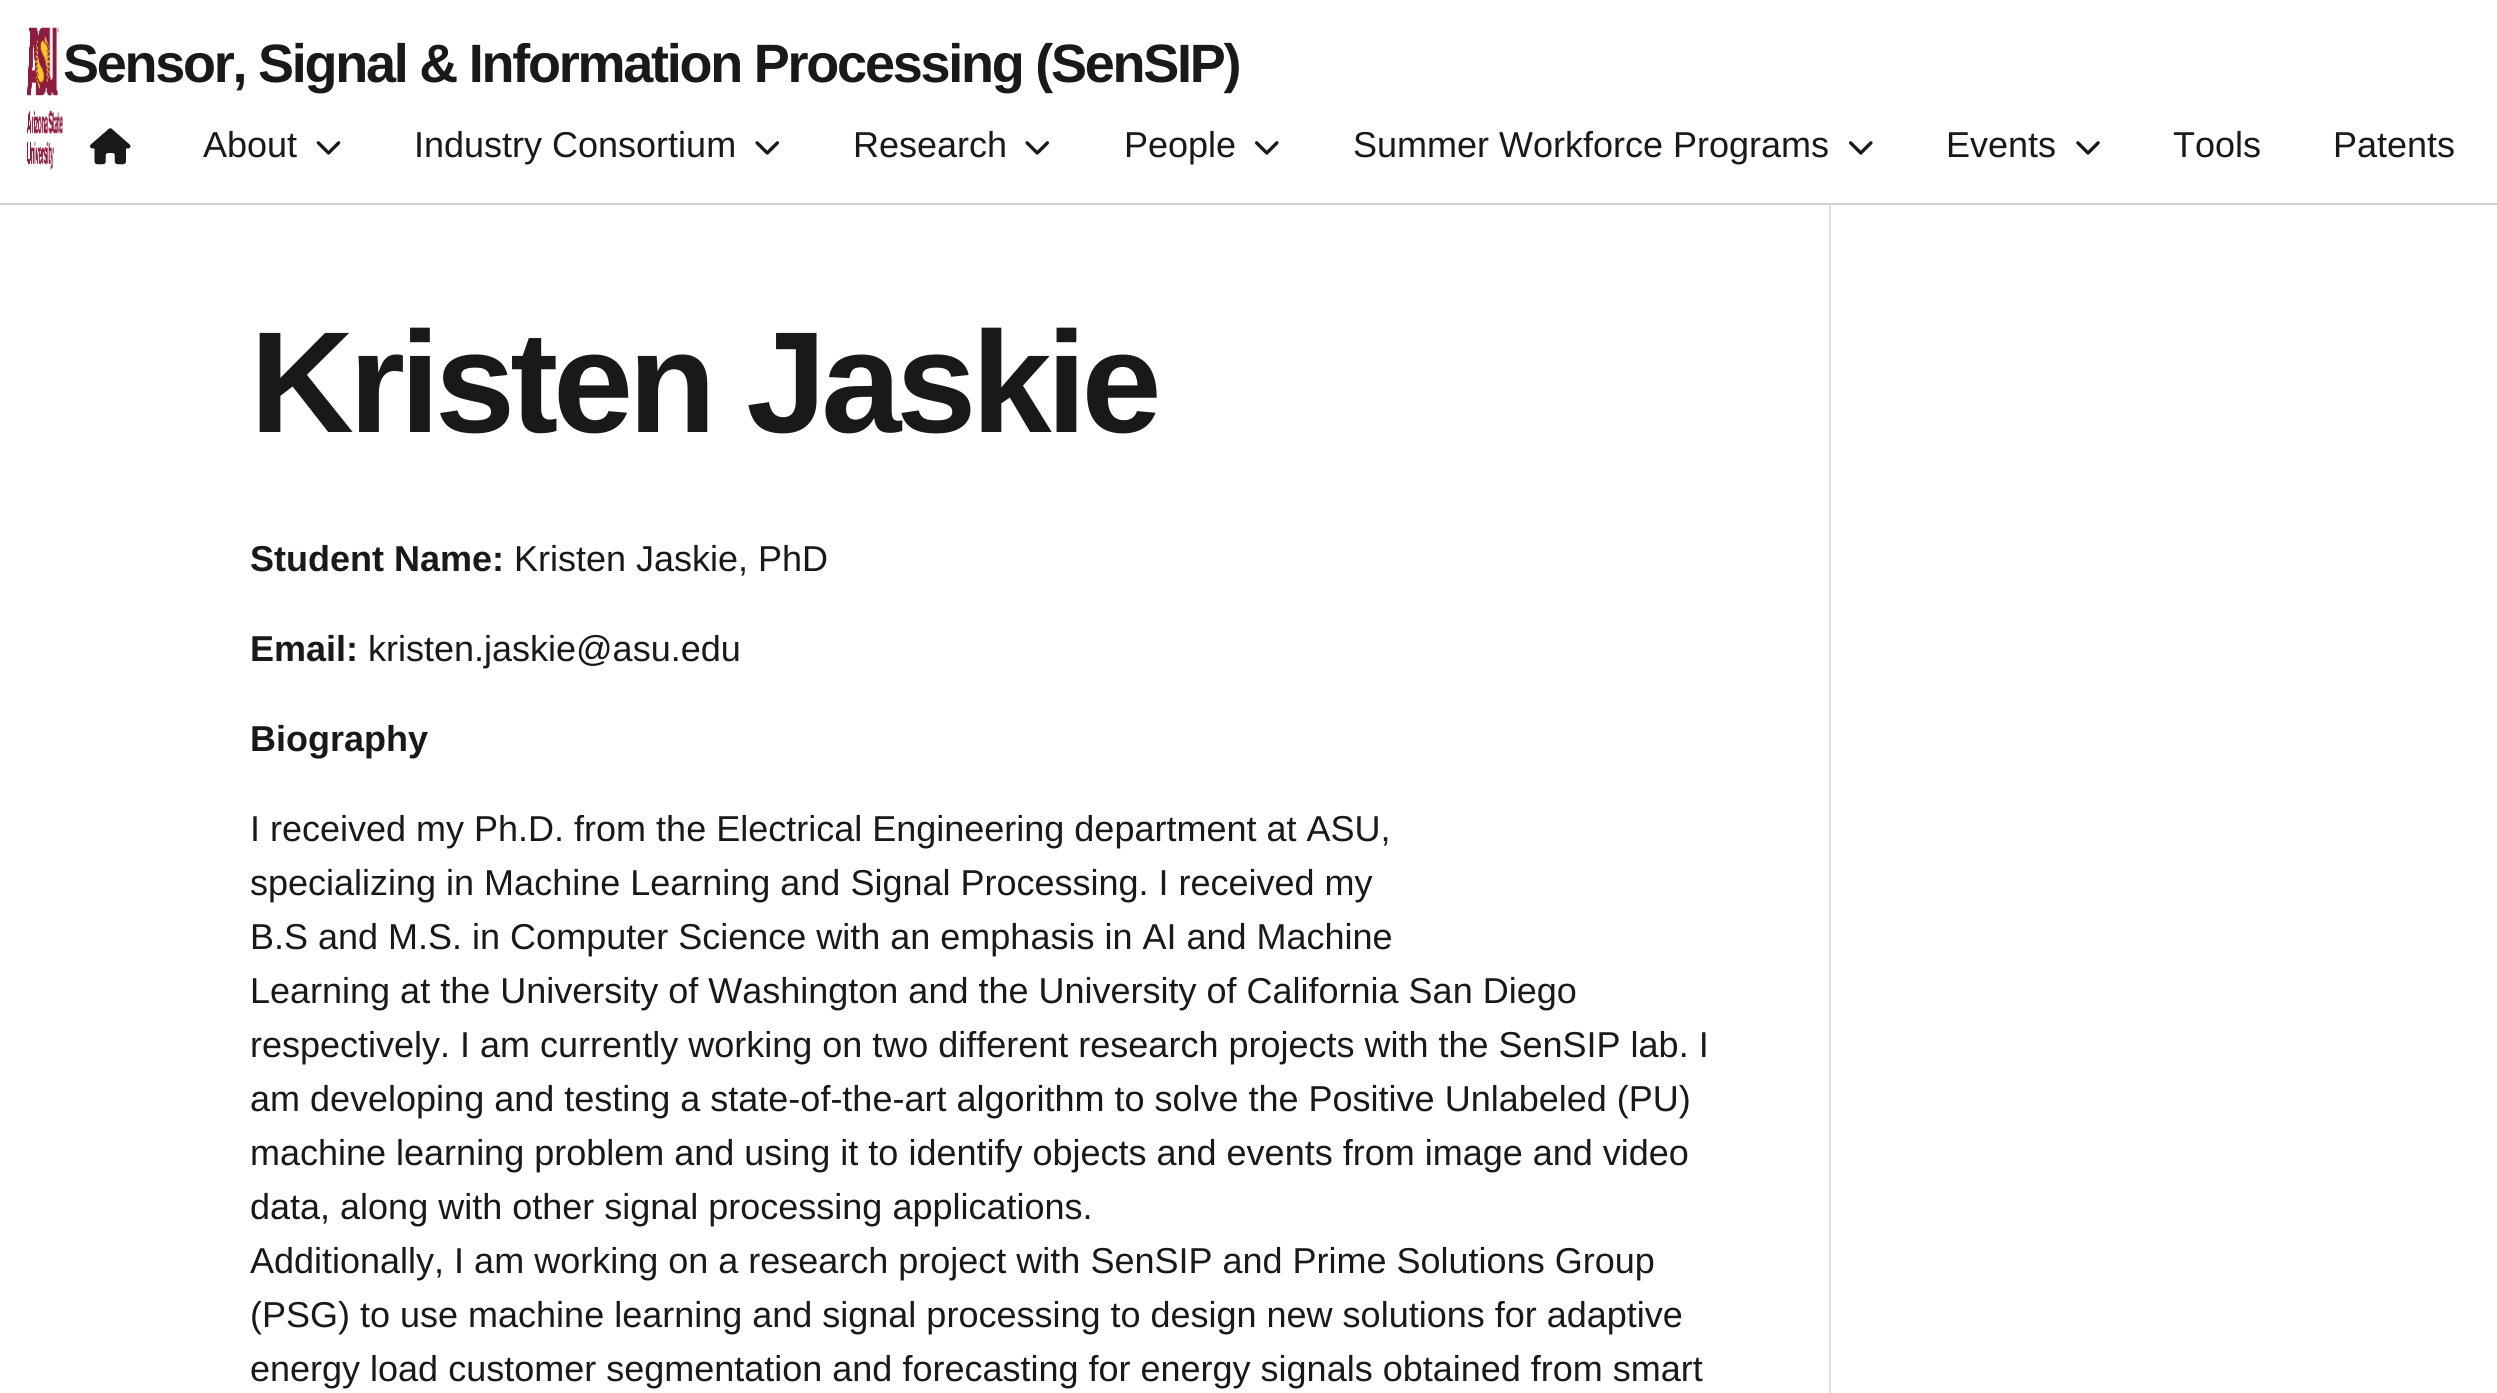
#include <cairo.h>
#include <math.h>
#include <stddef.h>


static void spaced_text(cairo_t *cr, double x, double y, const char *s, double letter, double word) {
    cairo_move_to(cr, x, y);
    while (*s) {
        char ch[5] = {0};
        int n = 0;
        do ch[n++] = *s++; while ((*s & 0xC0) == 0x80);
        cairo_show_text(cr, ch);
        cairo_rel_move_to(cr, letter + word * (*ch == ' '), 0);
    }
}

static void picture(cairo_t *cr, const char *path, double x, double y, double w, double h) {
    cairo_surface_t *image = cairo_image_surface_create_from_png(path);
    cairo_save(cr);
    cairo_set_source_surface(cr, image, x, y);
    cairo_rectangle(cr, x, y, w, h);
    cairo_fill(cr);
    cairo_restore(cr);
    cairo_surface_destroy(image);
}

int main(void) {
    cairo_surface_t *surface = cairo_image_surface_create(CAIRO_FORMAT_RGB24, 2497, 1393);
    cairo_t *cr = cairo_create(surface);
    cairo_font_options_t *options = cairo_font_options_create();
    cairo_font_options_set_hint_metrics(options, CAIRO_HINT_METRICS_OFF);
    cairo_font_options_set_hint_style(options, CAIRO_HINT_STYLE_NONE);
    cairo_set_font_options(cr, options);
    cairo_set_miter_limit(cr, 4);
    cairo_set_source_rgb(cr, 1, 1, 1);
    cairo_paint(cr);
    cairo_set_source_rgb(cr, 0.816, 0.816, 0.816);
    cairo_rectangle(cr, 0, 203, 2497, 2);
    cairo_fill(cr);
    picture(cr, "img1.png", 27, 27, 36, 143);
    cairo_select_font_face(cr, "Liberation Sans", CAIRO_FONT_SLANT_NORMAL, CAIRO_FONT_WEIGHT_BOLD);
    cairo_set_font_size(cr, 54);
    cairo_set_source_rgb(cr, 0.098, 0.098, 0.098);
    spaced_text(cr, 63, 82, "Sensor, Signal & Information Processing (SenSIP)", -2.25, 0);
    picture(cr, "img2.png", 90, 128, 41, 37);
    cairo_select_font_face(cr, "Liberation Sans", CAIRO_FONT_SLANT_NORMAL, CAIRO_FONT_WEIGHT_NORMAL);
    cairo_set_font_size(cr, 36);
    cairo_move_to(cr, 203, 157);
    cairo_show_text(cr, "About");
    picture(cr, "img3.png", 316, 141, 25, 14);
    cairo_move_to(cr, 414, 157);
    cairo_show_text(cr, "Industry Consortium");
    picture(cr, "img4.png", 755, 141, 24, 14);
    cairo_move_to(cr, 853, 157);
    cairo_show_text(cr, "Research");
    picture(cr, "img4.png", 1025, 141, 24, 14);
    cairo_move_to(cr, 1124, 157);
    cairo_show_text(cr, "People");
    picture(cr, "img5.png", 1255, 141, 24, 14);
    cairo_move_to(cr, 1353, 157);
    cairo_show_text(cr, "Summer Workforce Programs");
    picture(cr, "img5.png", 1849, 141, 24, 14);
    cairo_move_to(cr, 1946, 157);
    cairo_show_text(cr, "Events");
    picture(cr, "img6.png", 2076, 141, 24, 14);
    cairo_move_to(cr, 2173, 157);
    cairo_show_text(cr, "Tools");
    cairo_move_to(cr, 2333, 157);
    cairo_show_text(cr, "Patents");
    cairo_select_font_face(cr, "Liberation Sans", CAIRO_FONT_SLANT_NORMAL, CAIRO_FONT_WEIGHT_BOLD);
    cairo_set_font_size(cr, 144);
    spaced_text(cr, 250, 432, "Kristen Jaskie", -5, 0);
    cairo_set_font_size(cr, 36);
    cairo_move_to(cr, 250, 571);
    cairo_show_text(cr, "Student Name:");
    cairo_select_font_face(cr, "Liberation Sans", CAIRO_FONT_SLANT_NORMAL, CAIRO_FONT_WEIGHT_NORMAL);
    cairo_move_to(cr, 514, 571);
    cairo_show_text(cr, "Kristen Jaskie, PhD");
    cairo_select_font_face(cr, "Liberation Sans", CAIRO_FONT_SLANT_NORMAL, CAIRO_FONT_WEIGHT_BOLD);
    cairo_move_to(cr, 250, 661);
    cairo_show_text(cr, "Email:");
    cairo_select_font_face(cr, "Liberation Sans", CAIRO_FONT_SLANT_NORMAL, CAIRO_FONT_WEIGHT_NORMAL);
    cairo_move_to(cr, 368, 661);
    cairo_show_text(cr, "kristen.jaskie@asu.edu");
    cairo_select_font_face(cr, "Liberation Sans", CAIRO_FONT_SLANT_NORMAL, CAIRO_FONT_WEIGHT_BOLD);
    cairo_move_to(cr, 250, 751);
    cairo_show_text(cr, "Biography");
    cairo_select_font_face(cr, "Liberation Sans", CAIRO_FONT_SLANT_NORMAL, CAIRO_FONT_WEIGHT_NORMAL);
    cairo_move_to(cr, 250, 841);
    cairo_show_text(cr, "I received my Ph.D. from the Electrical Engineering department at ASU,");
    cairo_move_to(cr, 250, 895);
    cairo_show_text(cr, "specializing in Machine Learning and Signal Processing. I received my");
    cairo_move_to(cr, 250, 949);
    cairo_show_text(cr, "B.S and M.S. in Computer Science with an emphasis in AI and Machine");
    cairo_move_to(cr, 250, 1003);
    cairo_show_text(cr, "Learning at the University of Washington and the University of California San Diego");
    cairo_move_to(cr, 250, 1057);
    cairo_show_text(cr, "respectively. I am currently working on two different research projects with the SenSIP lab. I");
    cairo_move_to(cr, 250, 1111);
    cairo_show_text(cr, "am developing and testing a state-of-the-art algorithm to solve the Positive Unlabeled (PU)");
    cairo_move_to(cr, 250, 1165);
    cairo_show_text(cr, "machine learning problem and using it to identify objects and events from image and video");
    cairo_move_to(cr, 250, 1219);
    cairo_show_text(cr, "data, along with other signal processing applications.");
    cairo_move_to(cr, 250, 1273);
    cairo_show_text(cr, "Additionally, I am working on a research project with SenSIP and Prime Solutions Group");
    cairo_move_to(cr, 250, 1327);
    cairo_show_text(cr, "(PSG) to use machine learning and signal processing to design new solutions for adaptive");
    cairo_move_to(cr, 250, 1381);
    cairo_show_text(cr, "energy load customer segmentation and forecasting for energy signals obtained from smart");
    cairo_set_source_rgb(cr, 0.886, 0.886, 0.886);
    cairo_rectangle(cr, 1829, 205, 2, 1188);
    cairo_fill(cr);
    cairo_surface_write_to_png(surface, "page.png");
    cairo_font_options_destroy(options);
    cairo_destroy(cr);
    cairo_surface_destroy(surface);
    return 0;
}
